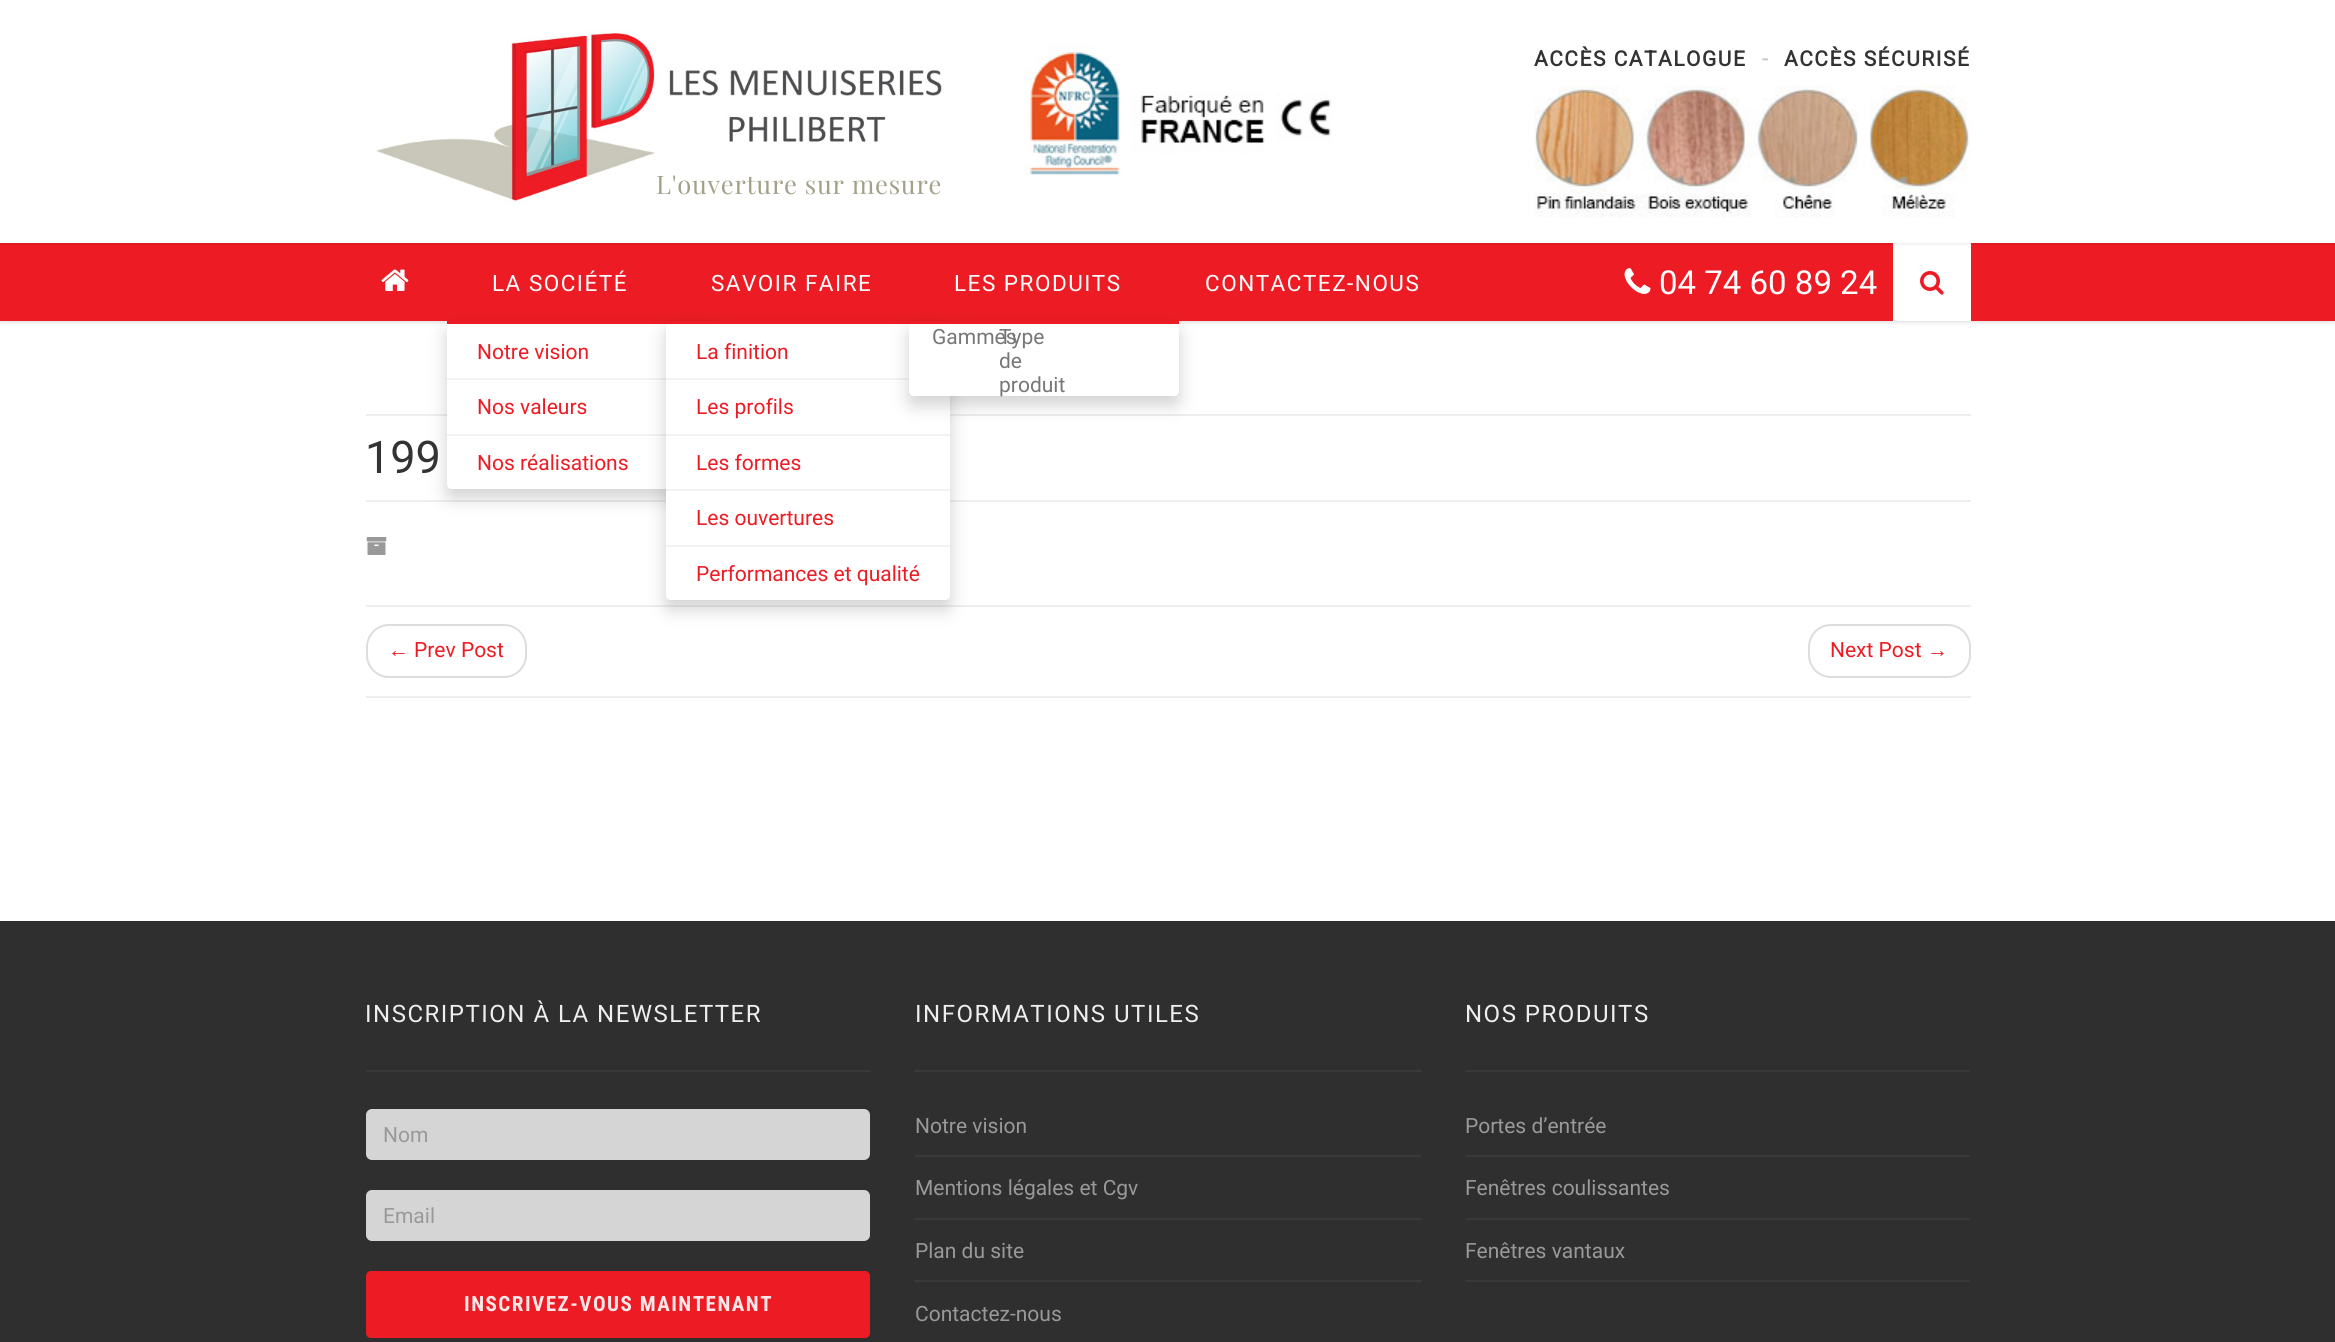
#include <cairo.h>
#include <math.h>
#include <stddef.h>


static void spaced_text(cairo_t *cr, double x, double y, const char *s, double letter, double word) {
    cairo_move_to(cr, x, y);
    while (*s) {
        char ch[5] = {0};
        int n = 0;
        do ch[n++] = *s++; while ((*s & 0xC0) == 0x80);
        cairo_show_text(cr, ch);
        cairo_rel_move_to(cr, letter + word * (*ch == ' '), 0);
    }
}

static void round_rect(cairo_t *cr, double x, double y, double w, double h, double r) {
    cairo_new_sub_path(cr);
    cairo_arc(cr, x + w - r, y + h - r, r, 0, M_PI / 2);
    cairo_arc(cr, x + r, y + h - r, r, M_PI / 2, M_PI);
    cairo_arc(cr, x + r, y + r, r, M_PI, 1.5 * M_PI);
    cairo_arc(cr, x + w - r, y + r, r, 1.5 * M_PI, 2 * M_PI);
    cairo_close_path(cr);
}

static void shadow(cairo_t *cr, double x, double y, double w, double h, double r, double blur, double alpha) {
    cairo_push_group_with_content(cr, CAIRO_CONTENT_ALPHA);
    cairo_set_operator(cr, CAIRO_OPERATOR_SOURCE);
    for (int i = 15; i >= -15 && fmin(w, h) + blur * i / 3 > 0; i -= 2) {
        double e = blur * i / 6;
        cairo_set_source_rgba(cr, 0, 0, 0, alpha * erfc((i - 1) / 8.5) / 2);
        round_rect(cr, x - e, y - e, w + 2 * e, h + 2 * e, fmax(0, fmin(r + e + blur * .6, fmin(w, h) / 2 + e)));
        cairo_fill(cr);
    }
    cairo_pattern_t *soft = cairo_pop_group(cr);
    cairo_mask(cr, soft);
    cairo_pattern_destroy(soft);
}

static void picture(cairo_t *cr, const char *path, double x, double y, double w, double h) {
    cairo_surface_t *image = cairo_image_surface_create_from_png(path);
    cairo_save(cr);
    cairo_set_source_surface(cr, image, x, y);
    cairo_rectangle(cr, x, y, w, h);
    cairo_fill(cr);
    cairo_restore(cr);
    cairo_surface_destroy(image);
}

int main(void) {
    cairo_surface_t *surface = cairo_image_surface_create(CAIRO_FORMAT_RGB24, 2335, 1342);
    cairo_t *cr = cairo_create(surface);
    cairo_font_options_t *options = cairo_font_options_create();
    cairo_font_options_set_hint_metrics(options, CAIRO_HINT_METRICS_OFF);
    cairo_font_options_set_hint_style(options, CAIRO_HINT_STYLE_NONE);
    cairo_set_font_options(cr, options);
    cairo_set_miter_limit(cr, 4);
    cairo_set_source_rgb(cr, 1, 1, 1);
    cairo_paint(cr);
    cairo_set_source_rgb(cr, 0, 0, 0);
    shadow(cr, 0, 245, 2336, 78, 0, 1.5, 0.1);
    cairo_set_source_rgb(cr, 0.929, 0.11, 0.141);
    cairo_rectangle(cr, 0, 243, 2335, 78);
    cairo_fill(cr);
    cairo_set_source_rgb(cr, 1, 1, 1);
    cairo_rectangle(cr, 1893, 243, 78, 78);
    cairo_fill(cr);
    cairo_set_source_rgba(cr, 0, 0, 0, 0.05);
    cairo_new_path(cr);
    cairo_move_to(cr, 0, 243);
    cairo_line_to(cr, 0, 245);
    cairo_line_to(cr, 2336, 245);
    cairo_line_to(cr, 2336, 2);
    cairo_line_to(cr, 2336, 243);
    cairo_close_path(cr);
    cairo_fill(cr);
    picture(cr, "img1.png", 1024, 45, 308, 132);
    cairo_select_font_face(cr, "Roboto", CAIRO_FONT_SLANT_NORMAL, CAIRO_FONT_WEIGHT_BOLD);
    cairo_set_font_size(cr, 21);
    cairo_set_source_rgb(cr, 0.2, 0.2, 0.2);
    spaced_text(cr, 1534, 66, "ACCÈS CATALOGUE", 1.5, 0);
    cairo_set_source_rgb(cr, 0.8, 0.8, 0.8);
    spaced_text(cr, 1762, 66, "-", 1.5, 0);
    cairo_set_source_rgb(cr, 0.2, 0.2, 0.2);
    spaced_text(cr, 1784, 66, "ACCÈS SÉCURISÉ", 1.5, 0);
    picture(cr, "img2.png", 1534, 85, 437, 133);
    picture(cr, "img3.png", 376, 30, 566, 174);
    cairo_select_font_face(cr, "Playfair Display", CAIRO_FONT_SLANT_NORMAL, CAIRO_FONT_WEIGHT_NORMAL);
    cairo_set_font_size(cr, 25.5);
    cairo_set_source_rgb(cr, 0.639, 0.631, 0.537);
    spaced_text(cr, 656, 194, "L'ouverture sur mesure", 0.75, 0);
    picture(cr, "img4.png", 381, 269, 28, 22);
    cairo_select_font_face(cr, "Roboto", CAIRO_FONT_SLANT_NORMAL, CAIRO_FONT_WEIGHT_NORMAL);
    cairo_set_font_size(cr, 22.5);
    cairo_set_source_rgb(cr, 1, 1, 1);
    spaced_text(cr, 492, 291, "LA SOCIÉTÉ", 1.5, 0);
    cairo_set_source_rgb(cr, 0.933, 0.933, 0.933);
    cairo_rectangle(cr, 366, 500, 1605, 2);
    cairo_fill(cr);
    cairo_rectangle(cr, 366, 414, 1605, 2);
    cairo_fill(cr);
    cairo_set_source_rgb(cr, 0, 0, 0);
    shadow(cr, 447, 330, 270, 168, 5, 9, 0.18);
    cairo_set_source_rgb(cr, 1, 1, 1);
    cairo_new_path(cr);
    cairo_move_to(cr, 447, 321);
    cairo_line_to(cr, 717, 321);
    cairo_line_to(cr, 717, 484);
    cairo_curve_to(cr, 717, 487, 715, 489, 712, 489);
    cairo_line_to(cr, 452, 489);
    cairo_curve_to(cr, 449, 489, 447, 487, 447, 484);
    cairo_close_path(cr);
    cairo_fill(cr);
    cairo_set_source_rgb(cr, 0.929, 0.11, 0.141);
    cairo_rectangle(cr, 447, 321, 219, 3);
    cairo_fill(cr);
    cairo_set_source_rgb(cr, 0.949, 0.949, 0.949);
    cairo_rectangle(cr, 447, 378, 219, 2);
    cairo_fill(cr);
    cairo_set_font_size(cr, 21);
    cairo_set_source_rgb(cr, 0.929, 0.11, 0.141);
    cairo_move_to(cr, 477, 359);
    cairo_show_text(cr, "Notre vision");
    cairo_set_source_rgb(cr, 0.949, 0.949, 0.949);
    cairo_rectangle(cr, 447, 434, 219, 2);
    cairo_fill(cr);
    cairo_set_source_rgb(cr, 0.929, 0.11, 0.141);
    cairo_move_to(cr, 477, 414);
    cairo_show_text(cr, "Nos valeurs");
    cairo_move_to(cr, 477, 470);
    cairo_show_text(cr, "Nos réalisations");
    cairo_set_font_size(cr, 22.5);
    cairo_set_source_rgb(cr, 1, 1, 1);
    spaced_text(cr, 711, 291, "SAVOIR FAIRE", 1.5, 0);
    cairo_set_source_rgb(cr, 0.933, 0.933, 0.933);
    cairo_rectangle(cr, 366, 605, 1605, 2);
    cairo_fill(cr);
    cairo_set_source_rgb(cr, 0, 0, 0);
    shadow(cr, 666, 330, 284, 279, 5, 9, 0.18);
    cairo_set_source_rgb(cr, 1, 1, 1);
    cairo_new_path(cr);
    cairo_move_to(cr, 666, 321);
    cairo_line_to(cr, 950, 321);
    cairo_line_to(cr, 950, 595);
    cairo_curve_to(cr, 950, 598, 948, 600, 945, 600);
    cairo_line_to(cr, 671, 600);
    cairo_curve_to(cr, 668, 600, 666, 598, 666, 595);
    cairo_close_path(cr);
    cairo_fill(cr);
    cairo_set_source_rgb(cr, 0.929, 0.11, 0.141);
    cairo_rectangle(cr, 666, 321, 243, 3);
    cairo_fill(cr);
    cairo_set_source_rgb(cr, 0.949, 0.949, 0.949);
    cairo_rectangle(cr, 666, 378, 243, 2);
    cairo_fill(cr);
    cairo_set_font_size(cr, 21);
    cairo_set_source_rgb(cr, 0.929, 0.11, 0.141);
    cairo_move_to(cr, 696, 359);
    cairo_show_text(cr, "La finition");
    cairo_set_source_rgb(cr, 0.949, 0.949, 0.949);
    cairo_rectangle(cr, 666, 434, 284, 2);
    cairo_fill(cr);
    cairo_set_source_rgb(cr, 0.929, 0.11, 0.141);
    cairo_move_to(cr, 696, 414);
    cairo_show_text(cr, "Les profils");
    cairo_set_source_rgb(cr, 0.949, 0.949, 0.949);
    cairo_rectangle(cr, 666, 489, 284, 2);
    cairo_fill(cr);
    cairo_set_source_rgb(cr, 0.929, 0.11, 0.141);
    cairo_move_to(cr, 696, 470);
    cairo_show_text(cr, "Les formes");
    cairo_set_source_rgb(cr, 0.949, 0.949, 0.949);
    cairo_rectangle(cr, 666, 545, 284, 2);
    cairo_fill(cr);
    cairo_set_source_rgb(cr, 0.929, 0.11, 0.141);
    cairo_move_to(cr, 696, 525);
    cairo_show_text(cr, "Les ouvertures");
    cairo_move_to(cr, 696, 581);
    cairo_show_text(cr, "Performances et qualité");
    cairo_set_font_size(cr, 22.5);
    cairo_set_source_rgb(cr, 1, 1, 1);
    spaced_text(cr, 954, 291, "LES PRODUITS", 1.5, 0);
    cairo_set_source_rgb(cr, 0, 0, 0);
    shadow(cr, 909, 330, 270, 75, 5, 9, 0.18);
    cairo_set_source_rgb(cr, 1, 1, 1);
    cairo_new_path(cr);
    cairo_move_to(cr, 909, 321);
    cairo_line_to(cr, 1179, 321);
    cairo_line_to(cr, 1179, 391);
    cairo_curve_to(cr, 1179, 394, 1177, 396, 1174, 396);
    cairo_line_to(cr, 914, 396);
    cairo_curve_to(cr, 911, 396, 909, 394, 909, 391);
    cairo_close_path(cr);
    cairo_fill(cr);
    cairo_set_source_rgb(cr, 0.929, 0.11, 0.141);
    cairo_rectangle(cr, 909, 321, 270, 3);
    cairo_fill(cr);
    cairo_set_font_size(cr, 21);
    cairo_set_source_rgb(cr, 0.467, 0.467, 0.467);
    cairo_move_to(cr, 932, 344);
    cairo_show_text(cr, "Gammes");
    cairo_move_to(cr, 999, 344);
    cairo_show_text(cr, "Type");
    cairo_move_to(cr, 999, 368);
    cairo_show_text(cr, "de");
    cairo_move_to(cr, 999, 392);
    cairo_show_text(cr, "produit");
    cairo_set_font_size(cr, 22.5);
    cairo_set_source_rgb(cr, 1, 1, 1);
    spaced_text(cr, 1205, 291, "CONTACTEZ-NOUS", 1.5, 0);
    picture(cr, "img5.png", 1624, 268, 27, 26);
    cairo_set_font_size(cr, 33);
    cairo_move_to(cr, 1659, 294);
    cairo_show_text(cr, "04 74 60 89 24");
    picture(cr, "img6.png", 1920, 271, 24, 24);
    cairo_set_font_size(cr, 45);
    cairo_set_source_rgb(cr, 0.2, 0.2, 0.2);
    cairo_move_to(cr, 365, 473);
    cairo_show_text(cr, "199");
    picture(cr, "img7.png", 366, 537, 21, 18);
    cairo_set_source_rgb(cr, 0.933, 0.933, 0.933);
    cairo_rectangle(cr, 366, 696, 1605, 2);
    cairo_fill(cr);
    round_rect(cr, 367, 625, 159, 52, 22);
    cairo_set_source_rgb(cr, 0.867, 0.867, 0.867);
    cairo_stroke(cr);
    cairo_select_font_face(cr, "Liberation Serif", CAIRO_FONT_SLANT_NORMAL, CAIRO_FONT_WEIGHT_NORMAL);
    cairo_set_font_size(cr, 21);
    cairo_set_source_rgb(cr, 0.929, 0.11, 0.141);
    cairo_move_to(cr, 388, 657);
    cairo_show_text(cr, "←");
    cairo_select_font_face(cr, "Roboto", CAIRO_FONT_SLANT_NORMAL, CAIRO_FONT_WEIGHT_NORMAL);
    cairo_move_to(cr, 414, 657);
    cairo_show_text(cr, "Prev Post");
    round_rect(cr, 1809, 625, 161, 52, 22);
    cairo_set_source_rgb(cr, 0.867, 0.867, 0.867);
    cairo_stroke(cr);
    cairo_set_source_rgb(cr, 0.929, 0.11, 0.141);
    cairo_move_to(cr, 1830, 657);
    cairo_show_text(cr, "Next Post");
    cairo_select_font_face(cr, "Liberation Serif", CAIRO_FONT_SLANT_NORMAL, CAIRO_FONT_WEIGHT_NORMAL);
    cairo_move_to(cr, 1927, 657);
    cairo_show_text(cr, "→");
    cairo_set_source_rgb(cr, 0.184, 0.184, 0.184);
    cairo_rectangle(cr, 0, 921, 2335, 421);
    cairo_fill(cr);
    cairo_set_source_rgb(cr, 0.224, 0.224, 0.224);
    cairo_rectangle(cr, 366, 1070, 504, 2);
    cairo_fill(cr);
    cairo_select_font_face(cr, "Roboto", CAIRO_FONT_SLANT_NORMAL, CAIRO_FONT_WEIGHT_NORMAL);
    cairo_set_font_size(cr, 24);
    cairo_set_source_rgb(cr, 0.933, 0.933, 0.933);
    spaced_text(cr, 365, 1022, "INSCRIPTION À LA NEWSLETTER", 1.5, 0);
    cairo_set_source_rgb(cr, 0.835, 0.835, 0.835);
    round_rect(cr, 366, 1109, 504, 51, 6);
    cairo_fill(cr);
    cairo_set_font_size(cr, 21);
    cairo_set_source_rgb(cr, 0.6, 0.6, 0.6);
    cairo_move_to(cr, 383, 1142);
    cairo_show_text(cr, "Nom");
    cairo_set_source_rgb(cr, 0.835, 0.835, 0.835);
    round_rect(cr, 366, 1190, 504, 51, 6);
    cairo_fill(cr);
    cairo_set_source_rgb(cr, 0.6, 0.6, 0.6);
    cairo_move_to(cr, 383, 1223);
    cairo_show_text(cr, "Email");
    cairo_set_source_rgb(cr, 0.929, 0.11, 0.141);
    round_rect(cr, 366, 1271, 504, 67, 5);
    cairo_fill(cr);
    cairo_select_font_face(cr, "Roboto Condensed", CAIRO_FONT_SLANT_NORMAL, CAIRO_FONT_WEIGHT_BOLD);
    cairo_set_source_rgb(cr, 0.992, 0.91, 0.914);
    spaced_text(cr, 464, 1311, "INSCRIVEZ-VOUS MAINTENANT", 1.5, 0);
    cairo_set_source_rgb(cr, 0.224, 0.224, 0.224);
    cairo_rectangle(cr, 915, 1070, 506, 2);
    cairo_fill(cr);
    cairo_select_font_face(cr, "Roboto", CAIRO_FONT_SLANT_NORMAL, CAIRO_FONT_WEIGHT_NORMAL);
    cairo_set_font_size(cr, 24);
    cairo_set_source_rgb(cr, 0.933, 0.933, 0.933);
    spaced_text(cr, 915, 1022, "INFORMATIONS UTILES", 1.5, 0);
    cairo_set_source_rgb(cr, 0.224, 0.224, 0.224);
    cairo_rectangle(cr, 915, 1155, 506, 2);
    cairo_fill(cr);
    cairo_set_font_size(cr, 21);
    cairo_set_source_rgb(cr, 0.6, 0.6, 0.6);
    cairo_move_to(cr, 915, 1133);
    cairo_show_text(cr, "Notre vision");
    cairo_set_source_rgb(cr, 0.224, 0.224, 0.224);
    cairo_rectangle(cr, 915, 1218, 506, 2);
    cairo_fill(cr);
    cairo_set_source_rgb(cr, 0.6, 0.6, 0.6);
    cairo_move_to(cr, 915, 1195);
    cairo_show_text(cr, "Mentions légales et Cgv");
    cairo_set_source_rgb(cr, 0.224, 0.224, 0.224);
    cairo_rectangle(cr, 915, 1280, 506, 2);
    cairo_fill(cr);
    cairo_set_source_rgb(cr, 0.6, 0.6, 0.6);
    cairo_move_to(cr, 915, 1258);
    cairo_show_text(cr, "Plan du site");
    cairo_move_to(cr, 915, 1321);
    cairo_show_text(cr, "Contactez-nous");
    cairo_set_source_rgb(cr, 0.224, 0.224, 0.224);
    cairo_rectangle(cr, 1466, 1070, 504, 2);
    cairo_fill(cr);
    cairo_set_font_size(cr, 24);
    cairo_set_source_rgb(cr, 0.933, 0.933, 0.933);
    spaced_text(cr, 1465, 1022, "NOS PRODUITS", 1.5, 0);
    cairo_set_source_rgb(cr, 0.224, 0.224, 0.224);
    cairo_rectangle(cr, 1466, 1155, 504, 2);
    cairo_fill(cr);
    cairo_set_font_size(cr, 21);
    cairo_set_source_rgb(cr, 0.6, 0.6, 0.6);
    cairo_move_to(cr, 1465, 1133);
    cairo_show_text(cr, "Portes d’entrée");
    cairo_set_source_rgb(cr, 0.224, 0.224, 0.224);
    cairo_rectangle(cr, 1466, 1218, 504, 2);
    cairo_fill(cr);
    cairo_set_source_rgb(cr, 0.6, 0.6, 0.6);
    cairo_move_to(cr, 1465, 1195);
    cairo_show_text(cr, "Fenêtres coulissantes");
    cairo_set_source_rgb(cr, 0.224, 0.224, 0.224);
    cairo_rectangle(cr, 1466, 1280, 504, 2);
    cairo_fill(cr);
    cairo_set_source_rgb(cr, 0.6, 0.6, 0.6);
    cairo_move_to(cr, 1465, 1258);
    cairo_show_text(cr, "Fenêtres vantaux");
    cairo_surface_write_to_png(surface, "page.png");
    cairo_font_options_destroy(options);
    cairo_destroy(cr);
    cairo_surface_destroy(surface);
    return 0;
}
